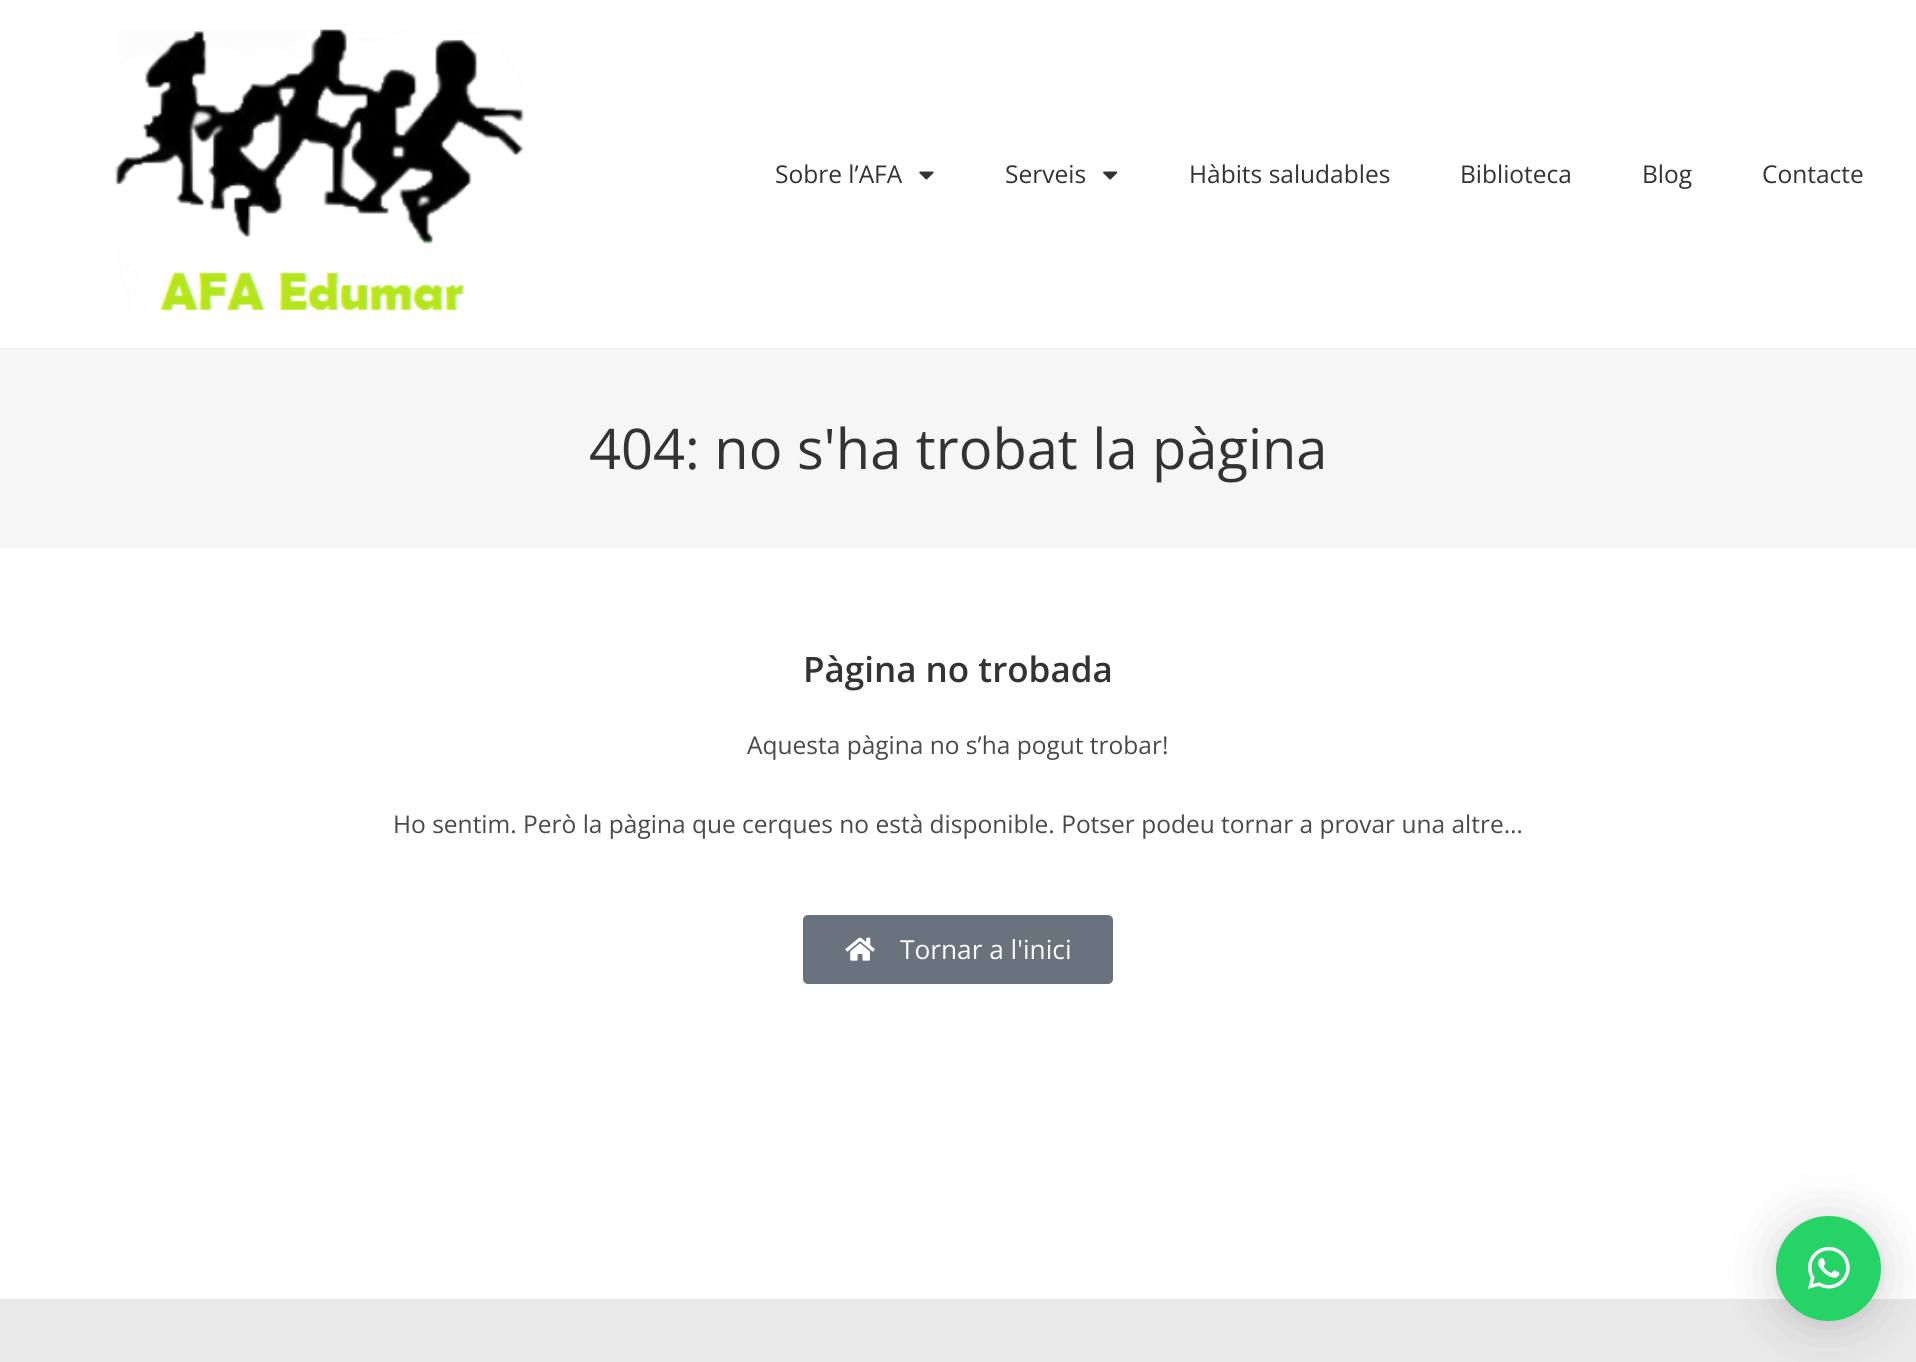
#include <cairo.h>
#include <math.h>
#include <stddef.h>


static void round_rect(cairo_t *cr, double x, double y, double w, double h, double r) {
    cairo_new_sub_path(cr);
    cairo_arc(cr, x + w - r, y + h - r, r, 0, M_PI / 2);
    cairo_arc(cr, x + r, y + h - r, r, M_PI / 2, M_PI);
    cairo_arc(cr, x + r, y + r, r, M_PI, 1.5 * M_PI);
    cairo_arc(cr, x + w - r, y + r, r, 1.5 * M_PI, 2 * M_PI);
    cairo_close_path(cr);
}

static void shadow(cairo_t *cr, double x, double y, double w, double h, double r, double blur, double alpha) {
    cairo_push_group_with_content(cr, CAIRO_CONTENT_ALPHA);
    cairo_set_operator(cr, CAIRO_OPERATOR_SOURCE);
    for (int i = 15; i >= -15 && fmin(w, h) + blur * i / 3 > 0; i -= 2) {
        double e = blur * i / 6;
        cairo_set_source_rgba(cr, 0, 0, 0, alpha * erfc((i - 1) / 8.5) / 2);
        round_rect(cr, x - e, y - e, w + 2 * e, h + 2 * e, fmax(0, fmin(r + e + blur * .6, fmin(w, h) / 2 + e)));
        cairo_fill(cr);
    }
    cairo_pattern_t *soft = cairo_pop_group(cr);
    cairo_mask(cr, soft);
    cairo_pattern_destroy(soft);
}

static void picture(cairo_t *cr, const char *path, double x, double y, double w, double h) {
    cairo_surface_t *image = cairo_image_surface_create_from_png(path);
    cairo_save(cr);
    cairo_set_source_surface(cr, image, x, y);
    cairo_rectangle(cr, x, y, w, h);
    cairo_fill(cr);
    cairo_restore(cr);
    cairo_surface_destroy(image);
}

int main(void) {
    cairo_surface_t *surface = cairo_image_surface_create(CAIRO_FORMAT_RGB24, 1916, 1362);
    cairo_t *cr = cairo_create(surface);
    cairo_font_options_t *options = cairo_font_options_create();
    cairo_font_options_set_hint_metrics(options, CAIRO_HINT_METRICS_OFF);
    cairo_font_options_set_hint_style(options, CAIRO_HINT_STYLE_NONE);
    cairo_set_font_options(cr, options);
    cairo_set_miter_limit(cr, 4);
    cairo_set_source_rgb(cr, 1, 1, 1);
    cairo_paint(cr);
    cairo_set_source_rgb(cr, 0.945, 0.945, 0.945);
    cairo_rectangle(cr, 0, 348, 1916, 2);
    cairo_fill(cr);
    picture(cr, "img1.png", 115, 29, 409, 282);
    cairo_select_font_face(cr, "Open Sans", CAIRO_FONT_SLANT_NORMAL, CAIRO_FONT_WEIGHT_NORMAL);
    cairo_set_font_size(cr, 24.5);
    cairo_set_source_rgb(cr, 0.2, 0.2, 0.2);
    cairo_move_to(cr, 775, 183);
    cairo_show_text(cr, "Sobre l’AFA");
    picture(cr, "img2.png", 919, 171, 15, 9);
    cairo_move_to(cr, 1005, 183);
    cairo_show_text(cr, "Serveis");
    picture(cr, "img3.png", 1103, 171, 15, 9);
    cairo_move_to(cr, 1189, 183);
    cairo_show_text(cr, "Hàbits saludables");
    cairo_move_to(cr, 1460, 183);
    cairo_show_text(cr, "Biblioteca");
    cairo_move_to(cr, 1642, 183);
    cairo_show_text(cr, "Blog");
    cairo_move_to(cr, 1762, 183);
    cairo_show_text(cr, "Contacte");
    cairo_set_source_rgb(cr, 0.961, 0.961, 0.961);
    cairo_rectangle(cr, 0, 350, 1916, 198);
    cairo_fill(cr);
    cairo_set_font_size(cr, 56);
    cairo_set_source_rgb(cr, 0.2, 0.2, 0.2);
    cairo_move_to(cr, 589, 469);
    cairo_show_text(cr, "404: no s'ha trobat la pàgina");
    cairo_select_font_face(cr, "Open Sans SemiBold", CAIRO_FONT_SLANT_NORMAL, CAIRO_FONT_WEIGHT_NORMAL);
    cairo_set_font_size(cr, 35);
    cairo_move_to(cr, 803, 682);
    cairo_show_text(cr, "Pàgina no trobada");
    cairo_select_font_face(cr, "Open Sans", CAIRO_FONT_SLANT_NORMAL, CAIRO_FONT_WEIGHT_NORMAL);
    cairo_set_font_size(cr, 24.5);
    cairo_set_source_rgb(cr, 0.29, 0.29, 0.29);
    cairo_move_to(cr, 747, 754);
    cairo_show_text(cr, "Aquesta pàgina no s’ha pogut trobar!");
    cairo_move_to(cr, 393, 833);
    cairo_show_text(cr, "Ho sentim. Però la pàgina que cerques no està disponible. Potser podeu tornar a provar una altre…");
    cairo_set_source_rgb(cr, 0.412, 0.447, 0.49);
    round_rect(cr, 803, 915, 310, 69, 5);
    cairo_fill(cr);
    picture(cr, "img4.png", 845, 937, 30, 24);
    cairo_set_font_size(cr, 26.25);
    cairo_set_source_rgb(cr, 1, 1, 1);
    cairo_move_to(cr, 900, 959);
    cairo_show_text(cr, "Tornar a l'inici");
    cairo_set_source_rgb(cr, 0.914, 0.914, 0.914);
    cairo_rectangle(cr, 0, 1299, 1916, 63);
    cairo_fill(cr);
    cairo_set_source_rgb(cr, 0, 0, 0);
    shadow(cr, 1776, 1220, 105, 105, 52.5, 28, 0.16);
    shadow(cr, 1776, 1218, 105, 105, 52.5, 5, 0.06);
    cairo_set_source_rgb(cr, 0.145, 0.827, 0.4);
    cairo_arc(cr, 1828.5, 1268.5, 52.5, 0, 2 * M_PI);
    cairo_fill(cr);
    picture(cr, "img5.png", 1807, 1246, 43, 43);
    cairo_surface_write_to_png(surface, "page.png");
    cairo_font_options_destroy(options);
    cairo_destroy(cr);
    cairo_surface_destroy(surface);
    return 0;
}
